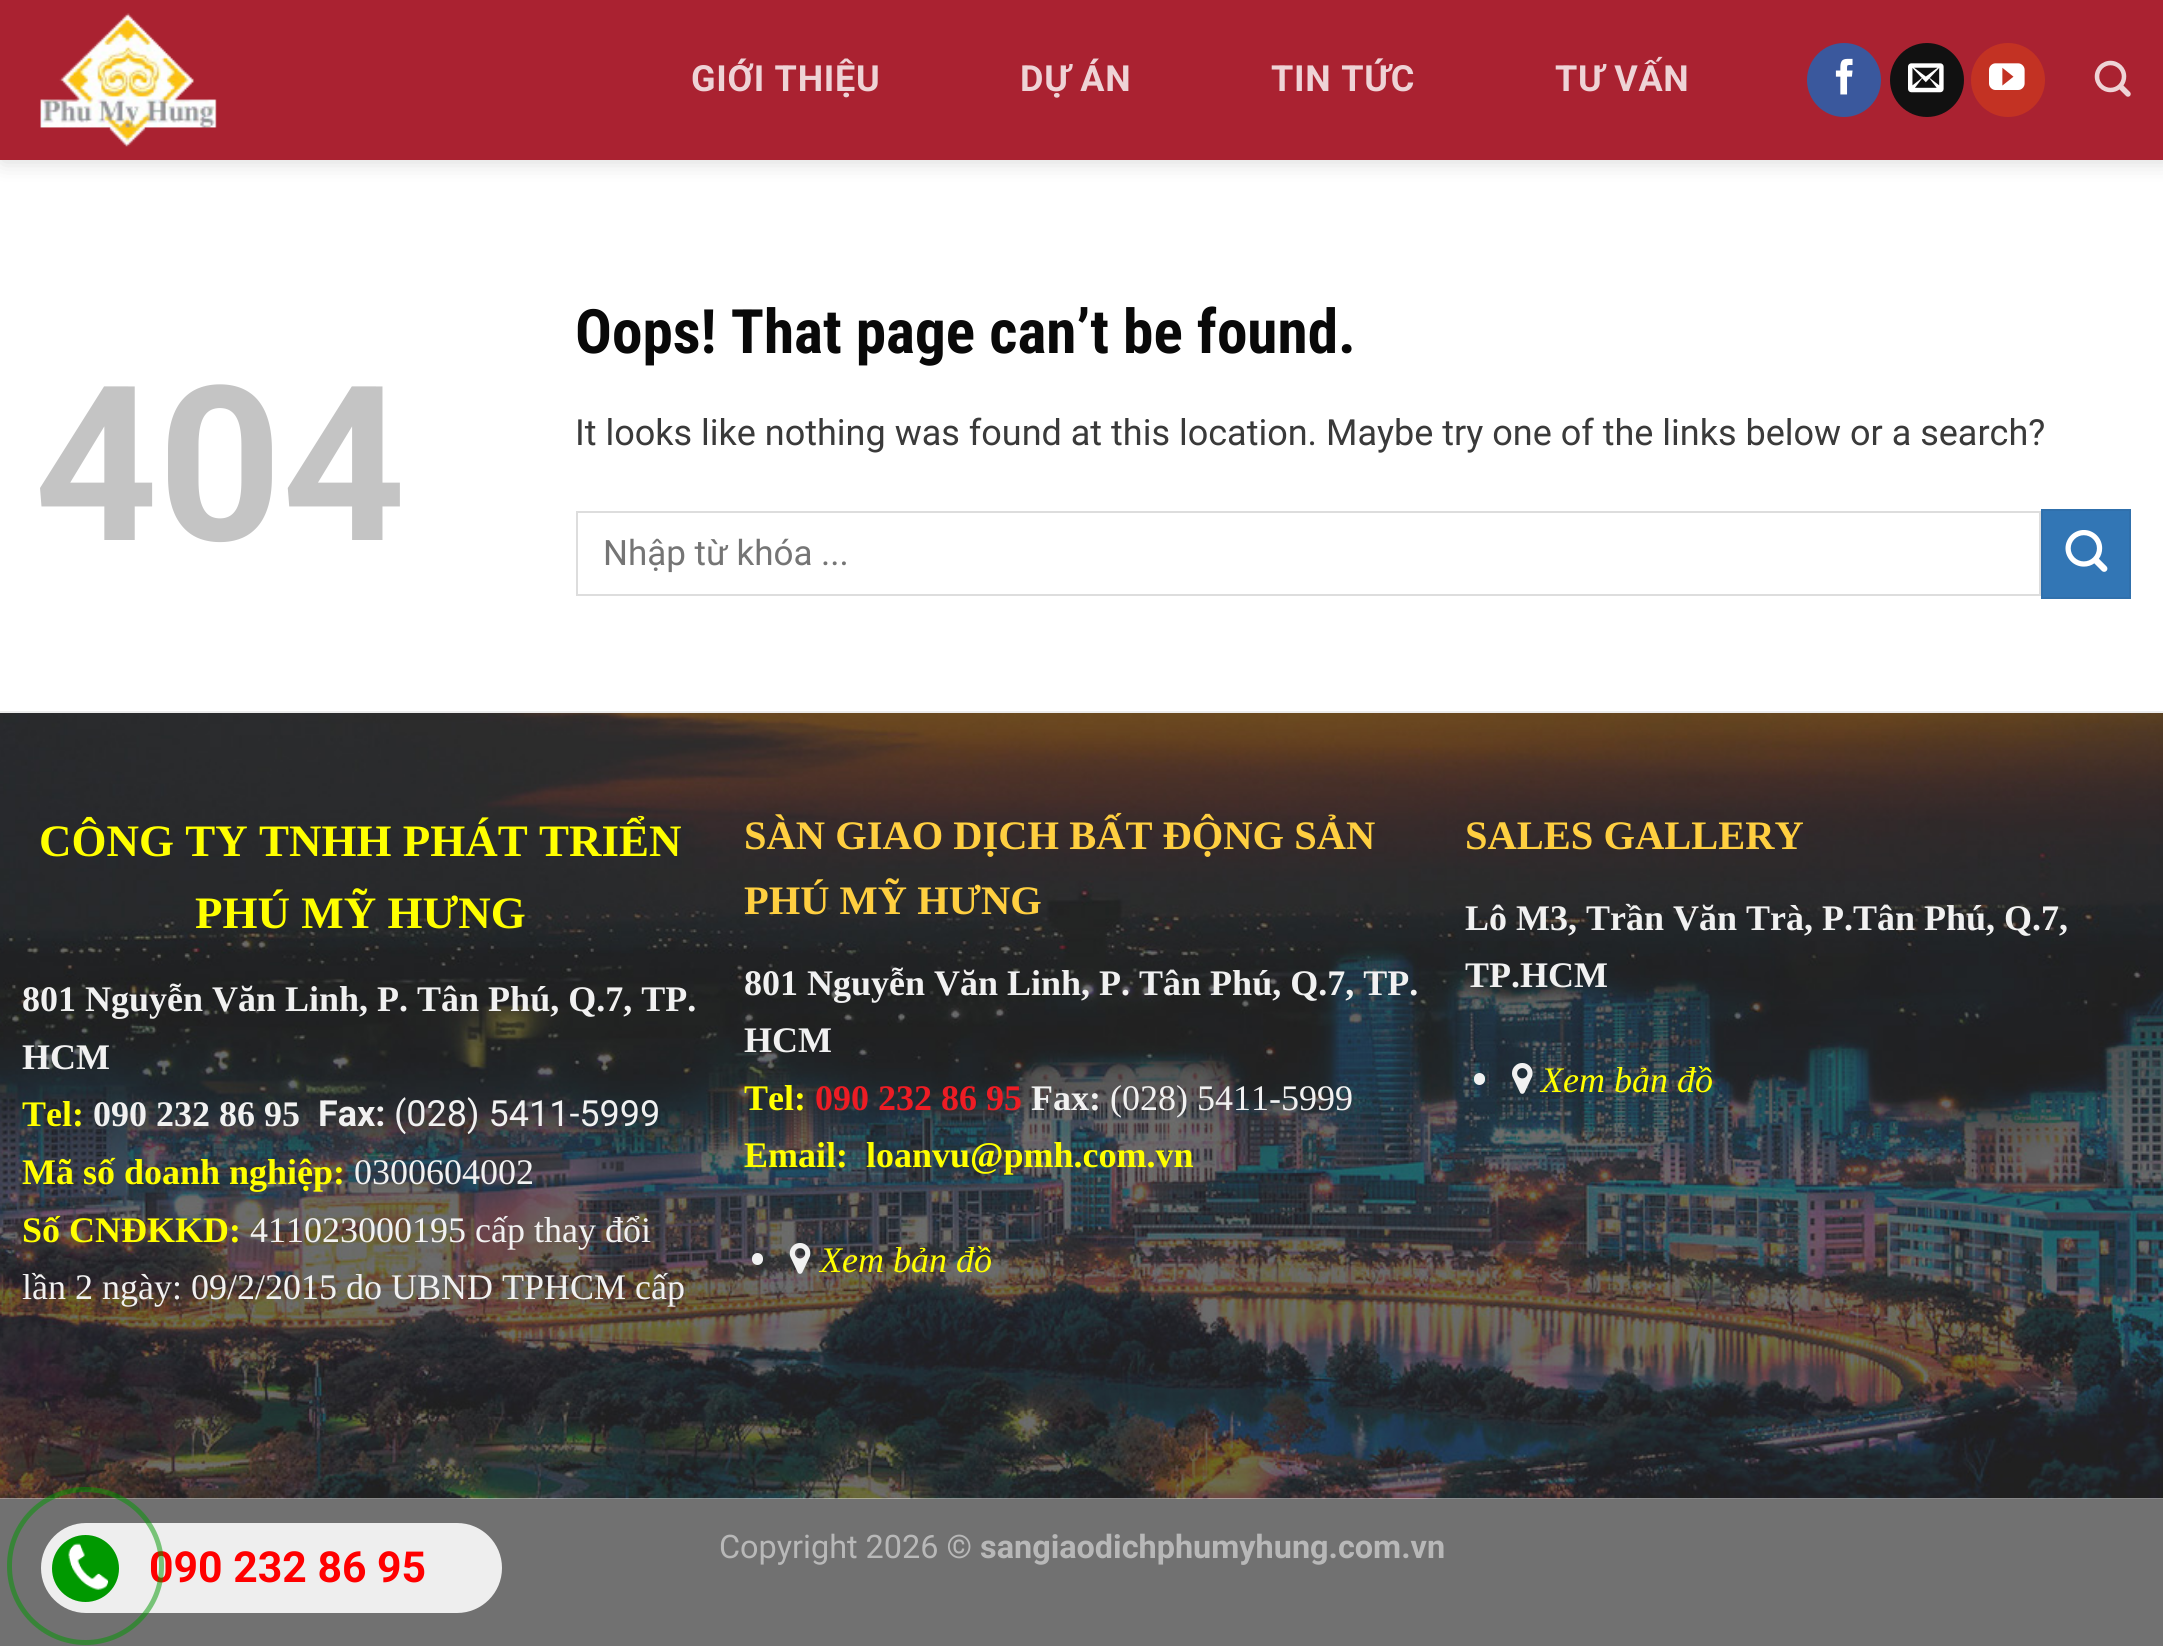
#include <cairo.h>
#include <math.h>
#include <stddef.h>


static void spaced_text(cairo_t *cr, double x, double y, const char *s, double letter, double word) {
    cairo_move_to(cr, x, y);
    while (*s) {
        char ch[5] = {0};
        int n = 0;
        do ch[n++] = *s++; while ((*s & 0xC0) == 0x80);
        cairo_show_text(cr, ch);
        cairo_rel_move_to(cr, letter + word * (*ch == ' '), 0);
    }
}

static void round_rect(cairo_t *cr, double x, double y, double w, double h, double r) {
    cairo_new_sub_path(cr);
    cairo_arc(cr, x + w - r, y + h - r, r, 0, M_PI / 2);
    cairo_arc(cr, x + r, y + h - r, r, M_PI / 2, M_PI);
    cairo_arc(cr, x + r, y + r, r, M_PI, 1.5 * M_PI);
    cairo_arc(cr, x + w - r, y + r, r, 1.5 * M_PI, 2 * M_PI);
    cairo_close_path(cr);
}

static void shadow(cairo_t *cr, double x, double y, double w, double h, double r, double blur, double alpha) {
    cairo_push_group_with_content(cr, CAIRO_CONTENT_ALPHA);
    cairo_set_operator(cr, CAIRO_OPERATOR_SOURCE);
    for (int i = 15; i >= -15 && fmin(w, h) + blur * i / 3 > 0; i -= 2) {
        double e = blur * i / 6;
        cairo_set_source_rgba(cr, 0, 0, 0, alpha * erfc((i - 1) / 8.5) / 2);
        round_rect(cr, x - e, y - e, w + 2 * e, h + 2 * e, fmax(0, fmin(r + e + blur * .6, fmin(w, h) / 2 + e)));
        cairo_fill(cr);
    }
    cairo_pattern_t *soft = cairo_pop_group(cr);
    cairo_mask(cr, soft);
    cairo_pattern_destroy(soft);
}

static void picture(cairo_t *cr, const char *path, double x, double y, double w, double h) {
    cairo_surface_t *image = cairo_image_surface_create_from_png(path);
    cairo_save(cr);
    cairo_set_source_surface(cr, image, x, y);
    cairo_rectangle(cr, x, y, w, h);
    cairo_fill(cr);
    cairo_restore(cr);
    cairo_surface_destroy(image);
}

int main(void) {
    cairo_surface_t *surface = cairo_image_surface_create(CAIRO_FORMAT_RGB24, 2163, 1646);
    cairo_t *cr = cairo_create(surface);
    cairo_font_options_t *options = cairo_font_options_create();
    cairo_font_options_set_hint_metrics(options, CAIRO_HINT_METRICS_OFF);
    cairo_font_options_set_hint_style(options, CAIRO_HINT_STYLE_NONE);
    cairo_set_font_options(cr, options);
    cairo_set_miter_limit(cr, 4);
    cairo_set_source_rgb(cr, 0.443, 0.443, 0.443);
    cairo_paint(cr);
    cairo_set_source_rgb(cr, 1, 1, 1);
    cairo_rectangle(cr, 0, 160, 2163, 551);
    cairo_fill(cr);
    cairo_set_source_rgb(cr, 0, 0, 0);
    shadow(cr, 2, 2, 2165, 160, 0, 11, 0.15);
    cairo_set_source_rgb(cr, 0.667, 0.133, 0.192);
    cairo_rectangle(cr, 0, 0, 2163, 160);
    cairo_fill(cr);
    picture(cr, "img1.png", 40, 13, 177, 134);
    cairo_select_font_face(cr, "Roboto", CAIRO_FONT_SLANT_NORMAL, CAIRO_FONT_WEIGHT_BOLD);
    cairo_set_font_size(cr, 36);
    cairo_set_source_rgb(cr, 0.933, 0.827, 0.839);
    spaced_text(cr, 691, 91, "GIỚI THIỆU", 0.75, 0);
    spaced_text(cr, 1020, 91, "DỰ ÁN", 0.75, 0);
    spaced_text(cr, 1271, 91, "TIN TỨC", 0.75, 0);
    spaced_text(cr, 1555, 91, "TƯ VẤN", 0.75, 0);
    cairo_set_source_rgb(cr, 0.227, 0.345, 0.616);
    cairo_new_path(cr);
    cairo_arc(cr, 1844, 80, 36, 0, 2 * M_PI);
    cairo_fill_preserve(cr);
    cairo_stroke(cr);
    picture(cr, "img2.png", 1835, 58, 18, 37);
    cairo_set_source_rgb(cr, 0.067, 0.067, 0.067);
    cairo_arc(cr, 1927, 80, 36, 0, 2 * M_PI);
    cairo_fill_preserve(cr);
    cairo_stroke(cr);
    picture(cr, "img3.png", 1908, 63, 36, 30);
    cairo_set_source_rgb(cr, 0.765, 0.196, 0.137);
    cairo_arc(cr, 2008, 80, 36, 0, 2 * M_PI);
    cairo_fill_preserve(cr);
    cairo_stroke(cr);
    picture(cr, "img4.png", 1989, 63, 36, 27);
    picture(cr, "img5.png", 2094, 60, 37, 37);
    cairo_set_source_rgb(cr, 0.933, 0.933, 0.933);
    round_rect(cr, 41, 1523, 461, 90, 45);
    cairo_fill(cr);
    cairo_set_font_size(cr, 42.75);
    cairo_set_source_rgb(cr, 1, 0, 0);
    cairo_move_to(cr, 149, 1582);
    cairo_show_text(cr, "090 232 86 95");
    cairo_set_source_rgb(cr, 0.941, 0.941, 0.941);
    cairo_rectangle(cr, 0, 1498, 2163, 1);
    cairo_fill(cr);
    picture(cr, "img8.png", 0, 713, 2163, 786);
    round_rect(cr, 9.5, 1489.5, 152, 153, 76);
    cairo_set_source_rgba(cr, 0, 0.6, 0, 0.5);
    cairo_set_line_width(cr, 5);
    cairo_stroke(cr);
    cairo_set_source_rgb(cr, 0, 0.6, 0);
    cairo_arc(cr, 85.5, 1568.5, 33.5, 0, 2 * M_PI);
    cairo_fill(cr);
    picture(cr, "img6.png", 68, 1543, 41, 47);
    cairo_set_font_size(cr, 216);
    cairo_set_source_rgb(cr, 0.769, 0.769, 0.769);
    cairo_move_to(cr, 34, 540);
    cairo_show_text(cr, "404");
    cairo_select_font_face(cr, "Roboto Condensed", CAIRO_FONT_SLANT_NORMAL, CAIRO_FONT_WEIGHT_BOLD);
    cairo_set_font_size(cr, 61.25);
    cairo_set_source_rgb(cr, 0.039, 0.039, 0.039);
    cairo_move_to(cr, 575, 353);
    cairo_show_text(cr, "Oops! That page can’t be found.");
    cairo_select_font_face(cr, "Roboto", CAIRO_FONT_SLANT_NORMAL, CAIRO_FONT_WEIGHT_NORMAL);
    cairo_set_font_size(cr, 36);
    cairo_set_source_rgb(cr, 0.227, 0.227, 0.227);
    cairo_move_to(cr, 575, 445);
    cairo_show_text(cr, "It looks like nothing was found at this location. Maybe try one of the links below or a search?");
    cairo_rectangle(cr, 577, 512, 1463, 83);
    cairo_set_source_rgb(cr, 0.867, 0.867, 0.867);
    cairo_set_line_width(cr, 2);
    cairo_stroke(cr);
    cairo_set_font_size(cr, 35);
    cairo_set_source_rgb(cr, 0.459, 0.459, 0.459);
    cairo_move_to(cr, 603, 565);
    cairo_show_text(cr, "Nhập từ khóa ...");
    cairo_set_source_rgb(cr, 0.196, 0.463, 0.71);
    cairo_rectangle(cr, 2042, 510, 88, 88);
    cairo_fill_preserve(cr);
    cairo_set_source_rgb(cr, 0.188, 0.439, 0.675);
    cairo_stroke(cr);
    picture(cr, "img7.png", 2065, 530, 43, 42);
    cairo_set_source_rgb(cr, 0.922, 0.922, 0.922);
    cairo_rectangle(cr, 0, 711, 2163, 2);
    cairo_fill(cr);
    cairo_select_font_face(cr, "Liberation Serif", CAIRO_FONT_SLANT_NORMAL, CAIRO_FONT_WEIGHT_BOLD);
    cairo_set_font_size(cr, 45);
    cairo_set_source_rgb(cr, 1, 1, 0);
    cairo_move_to(cr, 39, 856);
    cairo_show_text(cr, "CÔNG TY TNHH PHÁT TRIỂN");
    cairo_move_to(cr, 195, 928);
    cairo_show_text(cr, "PHÚ MỸ HƯNG");
    cairo_set_font_size(cr, 36);
    cairo_set_source_rgb(cr, 0.945, 0.945, 0.945);
    cairo_move_to(cr, 22, 1011);
    cairo_show_text(cr, "801 Nguyễn Văn Linh, P. Tân Phú, Q.7, TP.");
    cairo_move_to(cr, 22, 1069);
    cairo_show_text(cr, "HCM");
    cairo_set_source_rgb(cr, 1, 1, 0);
    cairo_move_to(cr, 22, 1126);
    cairo_show_text(cr, "Tel:");
    cairo_set_source_rgb(cr, 0.945, 0.945, 0.945);
    cairo_move_to(cr, 93, 1126);
    cairo_show_text(cr, "090 232 86 95");
    cairo_select_font_face(cr, "Roboto", CAIRO_FONT_SLANT_NORMAL, CAIRO_FONT_WEIGHT_BOLD);
    cairo_move_to(cr, 318, 1126);
    cairo_show_text(cr, "Fax:");
    cairo_select_font_face(cr, "Roboto", CAIRO_FONT_SLANT_NORMAL, CAIRO_FONT_WEIGHT_NORMAL);
    cairo_move_to(cr, 394, 1126);
    cairo_show_text(cr, "(028) 5411-5999");
    cairo_select_font_face(cr, "Liberation Serif", CAIRO_FONT_SLANT_NORMAL, CAIRO_FONT_WEIGHT_BOLD);
    cairo_set_source_rgb(cr, 1, 1, 0);
    cairo_move_to(cr, 22, 1184);
    cairo_show_text(cr, "Mã số doanh nghiệp:");
    cairo_select_font_face(cr, "Liberation Serif", CAIRO_FONT_SLANT_NORMAL, CAIRO_FONT_WEIGHT_NORMAL);
    cairo_set_source_rgb(cr, 0.945, 0.945, 0.945);
    cairo_move_to(cr, 354, 1184);
    cairo_show_text(cr, "0300604002");
    cairo_select_font_face(cr, "Liberation Serif", CAIRO_FONT_SLANT_NORMAL, CAIRO_FONT_WEIGHT_BOLD);
    cairo_set_source_rgb(cr, 1, 1, 0);
    cairo_move_to(cr, 22, 1242);
    cairo_show_text(cr, "Số CNĐKKD:");
    cairo_select_font_face(cr, "Liberation Serif", CAIRO_FONT_SLANT_NORMAL, CAIRO_FONT_WEIGHT_NORMAL);
    cairo_set_source_rgb(cr, 0.945, 0.945, 0.945);
    cairo_move_to(cr, 250, 1242);
    cairo_show_text(cr, "411023000195 cấp thay đổi");
    cairo_move_to(cr, 22, 1299);
    cairo_show_text(cr, "lần 2 ngày: 09/2/2015 do UBND TPHCM cấp");
    cairo_select_font_face(cr, "Liberation Serif", CAIRO_FONT_SLANT_NORMAL, CAIRO_FONT_WEIGHT_BOLD);
    cairo_set_font_size(cr, 40.5);
    cairo_set_source_rgb(cr, 1, 0.812, 0.251);
    cairo_move_to(cr, 744, 849);
    cairo_show_text(cr, "SÀN GIAO DỊCH BẤT ĐỘNG SẢN");
    cairo_move_to(cr, 744, 914);
    cairo_show_text(cr, "PHÚ MỸ HƯNG");
    cairo_set_font_size(cr, 36);
    cairo_set_source_rgb(cr, 0.945, 0.945, 0.945);
    cairo_move_to(cr, 744, 995);
    cairo_show_text(cr, "801 Nguyễn Văn Linh, P. Tân Phú, Q.7, TP.");
    cairo_move_to(cr, 744, 1052);
    cairo_show_text(cr, "HCM");
    cairo_set_source_rgb(cr, 1, 1, 0);
    cairo_move_to(cr, 744, 1110);
    cairo_show_text(cr, "Tel:");
    cairo_set_source_rgb(cr, 0.929, 0.11, 0.141);
    cairo_move_to(cr, 815, 1110);
    cairo_show_text(cr, "090 232 86 95");
    cairo_set_source_rgb(cr, 0.945, 0.945, 0.945);
    cairo_move_to(cr, 1031, 1110);
    cairo_show_text(cr, "Fax:");
    cairo_select_font_face(cr, "Liberation Serif", CAIRO_FONT_SLANT_NORMAL, CAIRO_FONT_WEIGHT_NORMAL);
    cairo_move_to(cr, 1110, 1110);
    cairo_show_text(cr, "(028) 5411-5999");
    cairo_select_font_face(cr, "Liberation Serif", CAIRO_FONT_SLANT_NORMAL, CAIRO_FONT_WEIGHT_BOLD);
    cairo_set_source_rgb(cr, 1, 1, 0);
    cairo_move_to(cr, 744, 1167);
    cairo_show_text(cr, "Email:");
    cairo_move_to(cr, 866, 1167);
    cairo_show_text(cr, "loanvu@pmh.com.vn");
    cairo_set_source_rgb(cr, 0.945, 0.945, 0.945);
    round_rect(cr, 752, 1253, 11, 12, 5.5);
    cairo_fill(cr);
    picture(cr, "img9.png", 789, 1243, 22, 31);
    cairo_select_font_face(cr, "Liberation Serif", CAIRO_FONT_SLANT_ITALIC, CAIRO_FONT_WEIGHT_NORMAL);
    cairo_set_source_rgb(cr, 1, 1, 0);
    cairo_move_to(cr, 820, 1272);
    cairo_show_text(cr, "Xem bản đồ");
    cairo_select_font_face(cr, "Liberation Serif", CAIRO_FONT_SLANT_NORMAL, CAIRO_FONT_WEIGHT_BOLD);
    cairo_set_font_size(cr, 40.5);
    cairo_set_source_rgb(cr, 1, 0.812, 0.251);
    cairo_move_to(cr, 1465, 849);
    cairo_show_text(cr, "SALES GALLERY");
    cairo_set_font_size(cr, 36);
    cairo_set_source_rgb(cr, 0.945, 0.945, 0.945);
    cairo_move_to(cr, 1465, 930);
    cairo_show_text(cr, "Lô M3, Trần Văn Trà, P.Tân Phú, Q.7,");
    cairo_move_to(cr, 1465, 987);
    cairo_show_text(cr, "TP.HCM");
    round_rect(cr, 1474, 1073, 11, 12, 5.5);
    cairo_fill(cr);
    picture(cr, "img10.png", 1512, 1063, 21, 31);
    cairo_select_font_face(cr, "Liberation Serif", CAIRO_FONT_SLANT_ITALIC, CAIRO_FONT_WEIGHT_NORMAL);
    cairo_set_source_rgb(cr, 1, 1, 0);
    cairo_move_to(cr, 1541, 1092);
    cairo_show_text(cr, "Xem bản đồ");
    cairo_select_font_face(cr, "Roboto", CAIRO_FONT_SLANT_NORMAL, CAIRO_FONT_WEIGHT_NORMAL);
    cairo_set_font_size(cr, 32.4);
    cairo_set_source_rgb(cr, 0.722, 0.722, 0.722);
    cairo_move_to(cr, 719, 1558);
    cairo_show_text(cr, "Copyright 2026 ©");
    cairo_select_font_face(cr, "Roboto", CAIRO_FONT_SLANT_NORMAL, CAIRO_FONT_WEIGHT_BOLD);
    cairo_move_to(cr, 980, 1558);
    cairo_show_text(cr, "sangiaodichphumyhung.com.vn");
    cairo_surface_write_to_png(surface, "page.png");
    cairo_font_options_destroy(options);
    cairo_destroy(cr);
    cairo_surface_destroy(surface);
    return 0;
}
